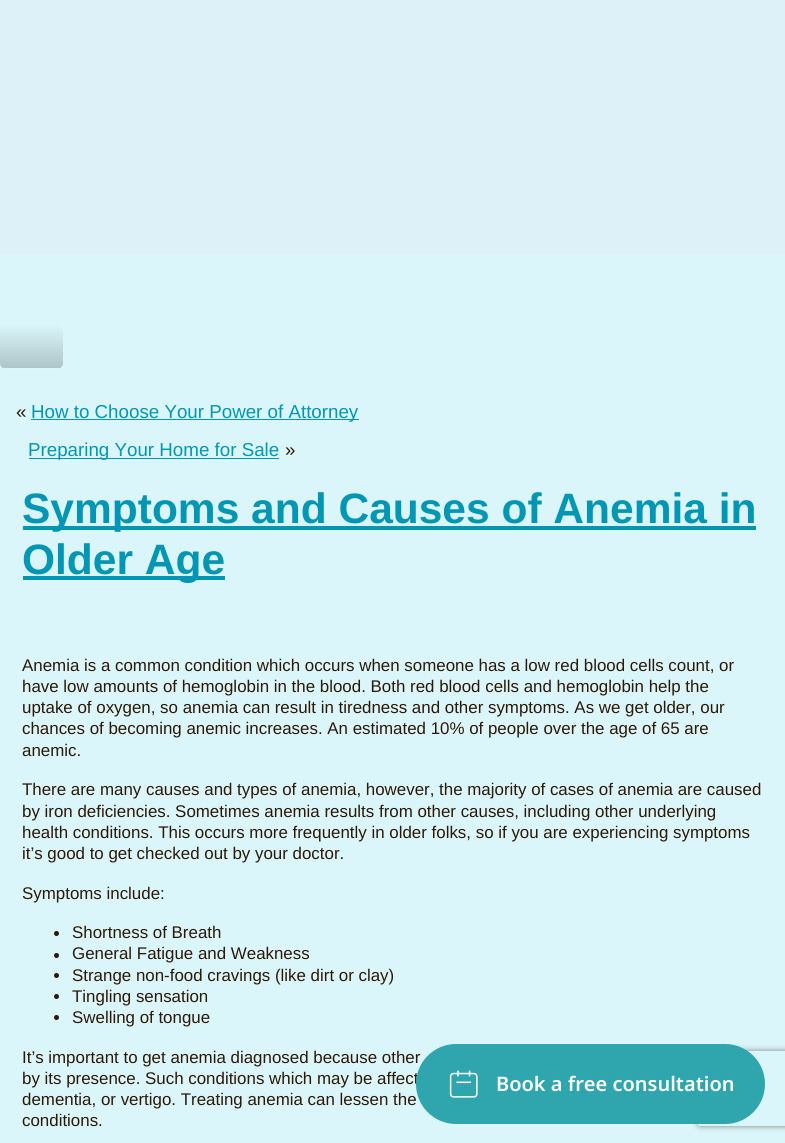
#include <cairo.h>
#include <math.h>
#include <stddef.h>


static void round_rect(cairo_t *cr, double x, double y, double w, double h, double r) {
    cairo_new_sub_path(cr);
    cairo_arc(cr, x + w - r, y + h - r, r, 0, M_PI / 2);
    cairo_arc(cr, x + r, y + h - r, r, M_PI / 2, M_PI);
    cairo_arc(cr, x + r, y + r, r, M_PI, 1.5 * M_PI);
    cairo_arc(cr, x + w - r, y + r, r, 1.5 * M_PI, 2 * M_PI);
    cairo_close_path(cr);
}

static void shadow(cairo_t *cr, double x, double y, double w, double h, double r, double blur, double alpha) {
    cairo_push_group_with_content(cr, CAIRO_CONTENT_ALPHA);
    cairo_set_operator(cr, CAIRO_OPERATOR_SOURCE);
    for (int i = 15; i >= -15 && fmin(w, h) + blur * i / 3 > 0; i -= 2) {
        double e = blur * i / 6;
        cairo_set_source_rgba(cr, 0, 0, 0, alpha * erfc((i - 1) / 8.5) / 2);
        round_rect(cr, x - e, y - e, w + 2 * e, h + 2 * e, fmax(0, fmin(r + e + blur * .6, fmin(w, h) / 2 + e)));
        cairo_fill(cr);
    }
    cairo_pattern_t *soft = cairo_pop_group(cr);
    cairo_mask(cr, soft);
    cairo_pattern_destroy(soft);
}

static void picture(cairo_t *cr, const char *path, double x, double y, double w, double h) {
    cairo_surface_t *image = cairo_image_surface_create_from_png(path);
    cairo_save(cr);
    cairo_set_source_surface(cr, image, x, y);
    cairo_rectangle(cr, x, y, w, h);
    cairo_fill(cr);
    cairo_restore(cr);
    cairo_surface_destroy(image);
}

int main(void) {
    cairo_surface_t *surface = cairo_image_surface_create(CAIRO_FORMAT_RGB24, 785, 1143);
    cairo_t *cr = cairo_create(surface);
    cairo_font_options_t *options = cairo_font_options_create();
    cairo_font_options_set_hint_metrics(options, CAIRO_HINT_METRICS_OFF);
    cairo_font_options_set_hint_style(options, CAIRO_HINT_STYLE_NONE);
    cairo_set_font_options(cr, options);
    cairo_set_miter_limit(cr, 4);
    cairo_pattern_t *gradient;
    cairo_set_source_rgb(cr, 0.855, 0.961, 0.98);
    cairo_paint(cr);
    cairo_set_source_rgb(cr, 0.867, 0.945, 0.969);
    cairo_rectangle(cr, 0, 0, 785, 254);
    cairo_fill(cr);
    cairo_save(cr);
    round_rect(cr, 0, 325, 63, 44, 6);
    cairo_clip(cr);
    gradient = cairo_pattern_create_linear(31, 325, 31, 368);
    cairo_pattern_add_color_stop_rgba(gradient, 0, 0.855, 0.961, 0.98, 1);
    cairo_pattern_add_color_stop_rgba(gradient, 1, 0.682, 0.769, 0.784, 1);
    cairo_set_source(cr, gradient);
    cairo_pattern_destroy(gradient);
    cairo_new_path(cr);
    cairo_move_to(cr, 6, 325);
    cairo_line_to(cr, 57, 325);
    cairo_curve_to(cr, 60.5, 325, 63, 327.5, 63, 331);
    cairo_line_to(cr, 63, 368);
    cairo_line_to(cr, 0, 368);
    cairo_line_to(cr, 0, 331);
    cairo_curve_to(cr, 0, 327.5, 2.5, 325, 6, 325);
    cairo_close_path(cr);
    cairo_fill(cr);
    cairo_restore(cr);
    cairo_set_source_rgb(cr, 0.871, 0.965, 0.984);
    cairo_rectangle(cr, 4, 368, 56, 1);
    cairo_fill(cr);
    cairo_select_font_face(cr, "Liberation Sans", CAIRO_FONT_SLANT_NORMAL, CAIRO_FONT_WEIGHT_NORMAL);
    cairo_set_font_size(cr, 18.75);
    cairo_set_source_rgb(cr, 0.176, 0.094, 0.024);
    cairo_move_to(cr, 16, 418);
    cairo_show_text(cr, "«");
    cairo_set_source_rgb(cr, 0, 0.588, 0.706);
    cairo_rectangle(cr, 31, 419, 328, 1);
    cairo_fill(cr);
    cairo_move_to(cr, 31, 418);
    cairo_show_text(cr, "How to Choose Your Power of Attorney");
    cairo_rectangle(cr, 29, 458, 250, 1);
    cairo_fill(cr);
    cairo_move_to(cr, 28, 456);
    cairo_show_text(cr, "Preparing Your Home for Sale");
    cairo_set_source_rgb(cr, 0.176, 0.094, 0.024);
    cairo_move_to(cr, 285, 456);
    cairo_show_text(cr, "»");
    cairo_set_source_rgb(cr, 0, 0.588, 0.706);
    cairo_rectangle(cr, 23, 526, 733, 4);
    cairo_fill(cr);
    cairo_select_font_face(cr, "Liberation Sans", CAIRO_FONT_SLANT_NORMAL, CAIRO_FONT_WEIGHT_BOLD);
    cairo_set_font_size(cr, 42.5);
    cairo_move_to(cr, 22, 523);
    cairo_show_text(cr, "Symptoms and Causes of Anemia in");
    cairo_rectangle(cr, 23, 576, 202, 4);
    cairo_fill(cr);
    cairo_move_to(cr, 22, 574);
    cairo_show_text(cr, "Older Age");
    cairo_select_font_face(cr, "Liberation Sans", CAIRO_FONT_SLANT_NORMAL, CAIRO_FONT_WEIGHT_NORMAL);
    cairo_set_font_size(cr, 16.9);
    cairo_set_source_rgb(cr, 0.176, 0.094, 0.024);
    cairo_move_to(cr, 22, 671);
    cairo_show_text(cr, "Anemia is a common condition which occurs when someone has a low red blood cells count, or");
    cairo_move_to(cr, 22, 692);
    cairo_show_text(cr, "have low amounts of hemoglobin in the blood. Both red blood cells and hemoglobin help the");
    cairo_move_to(cr, 22, 713);
    cairo_show_text(cr, "uptake of oxygen, so anemia can result in tiredness and other symptoms. As we get older, our");
    cairo_move_to(cr, 22, 734);
    cairo_show_text(cr, "chances of becoming anemic increases. An estimated 10% of people over the age of 65 are");
    cairo_move_to(cr, 22, 756);
    cairo_show_text(cr, "anemic.");
    cairo_move_to(cr, 22, 795);
    cairo_show_text(cr, "There are many causes and types of anemia, however, the majority of cases of anemia are caused");
    cairo_move_to(cr, 22, 817);
    cairo_show_text(cr, "by iron deficiencies. Sometimes anemia results from other causes, including other underlying");
    cairo_move_to(cr, 22, 838);
    cairo_show_text(cr, "health conditions. This occurs more frequently in older folks, so if you are experiencing symptoms");
    cairo_move_to(cr, 22, 859);
    cairo_show_text(cr, "it’s good to get checked out by your doctor.");
    cairo_move_to(cr, 22, 899);
    cairo_show_text(cr, "Symptoms include:");
    cairo_new_path(cr);
    cairo_arc(cr, 56.5, 933.5, 2.5, 0, 2 * M_PI);
    cairo_fill(cr);
    cairo_move_to(cr, 72, 938);
    cairo_show_text(cr, "Shortness of Breath");
    cairo_new_path(cr);
    cairo_arc(cr, 56.5, 955.5, 2.5, 0, 2 * M_PI);
    cairo_fill(cr);
    cairo_move_to(cr, 72, 959);
    cairo_show_text(cr, "General Fatigue and Weakness");
    cairo_new_path(cr);
    cairo_arc(cr, 56.5, 975.5, 2.5, 0, 2 * M_PI);
    cairo_fill(cr);
    cairo_move_to(cr, 72, 981);
    cairo_show_text(cr, "Strange non-food cravings (like dirt or clay)");
    cairo_new_path(cr);
    cairo_arc(cr, 56.5, 996.5, 2.5, 0, 2 * M_PI);
    cairo_fill(cr);
    cairo_move_to(cr, 72, 1002);
    cairo_show_text(cr, "Tingling sensation");
    cairo_new_path(cr);
    cairo_arc(cr, 56.5, 1017.5, 2.5, 0, 2 * M_PI);
    cairo_fill(cr);
    cairo_move_to(cr, 72, 1023);
    cairo_show_text(cr, "Swelling of tongue");
    cairo_move_to(cr, 22, 1063);
    cairo_show_text(cr, "It’s important to get anemia diagnosed because other");
    cairo_move_to(cr, 22, 1084);
    cairo_show_text(cr, "by its presence. Such conditions which may be affect");
    cairo_move_to(cr, 22, 1105);
    cairo_show_text(cr, "dementia, or vertigo. Treating anemia can lessen the");
    cairo_move_to(cr, 22, 1126);
    cairo_show_text(cr, "conditions.");
    cairo_save(cr);
    cairo_set_fill_rule(cr, CAIRO_FILL_RULE_EVEN_ODD);
    cairo_new_path(cr);
    cairo_move_to(cr, 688, 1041);
    cairo_line_to(cr, 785, 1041);
    cairo_line_to(cr, 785, 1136);
    cairo_line_to(cr, 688, 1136);
    cairo_close_path(cr);
    cairo_move_to(cr, 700.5, 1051);
    cairo_line_to(cr, 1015.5, 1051);
    cairo_curve_to(cr, 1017, 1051, 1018, 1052, 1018, 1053.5);
    cairo_line_to(cr, 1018, 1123.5);
    cairo_curve_to(cr, 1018, 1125, 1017, 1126, 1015.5, 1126);
    cairo_line_to(cr, 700.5, 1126);
    cairo_curve_to(cr, 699, 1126, 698, 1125, 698, 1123.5);
    cairo_line_to(cr, 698, 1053.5);
    cairo_curve_to(cr, 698, 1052, 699, 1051, 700.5, 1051);
    cairo_close_path(cr);
    cairo_clip(cr);
    cairo_set_source_rgb(cr, 0.502, 0.502, 0.502);
    shadow(cr, 698, 1051, 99, 75, 2.5, 3, 1);
    cairo_restore(cr);
    cairo_set_source_rgb(cr, 0.184, 0.647, 0.682);
    round_rect(cr, 416, 1044, 349, 80, 40);
    cairo_fill(cr);
    picture(cr, "img1.png", 449, 1070, 29, 28);
    cairo_select_font_face(cr, "Noto Sans SemiBold", CAIRO_FONT_SLANT_NORMAL, CAIRO_FONT_WEIGHT_NORMAL);
    cairo_set_font_size(cr, 20);
    cairo_set_source_rgb(cr, 1, 1, 1);
    cairo_move_to(cr, 496, 1091);
    cairo_show_text(cr, "Book a free consultation");
    cairo_surface_write_to_png(surface, "page.png");
    cairo_font_options_destroy(options);
    cairo_destroy(cr);
    cairo_surface_destroy(surface);
    return 0;
}
